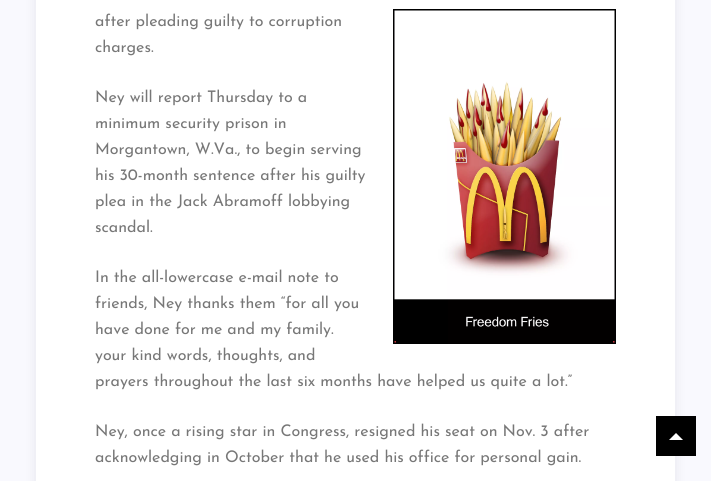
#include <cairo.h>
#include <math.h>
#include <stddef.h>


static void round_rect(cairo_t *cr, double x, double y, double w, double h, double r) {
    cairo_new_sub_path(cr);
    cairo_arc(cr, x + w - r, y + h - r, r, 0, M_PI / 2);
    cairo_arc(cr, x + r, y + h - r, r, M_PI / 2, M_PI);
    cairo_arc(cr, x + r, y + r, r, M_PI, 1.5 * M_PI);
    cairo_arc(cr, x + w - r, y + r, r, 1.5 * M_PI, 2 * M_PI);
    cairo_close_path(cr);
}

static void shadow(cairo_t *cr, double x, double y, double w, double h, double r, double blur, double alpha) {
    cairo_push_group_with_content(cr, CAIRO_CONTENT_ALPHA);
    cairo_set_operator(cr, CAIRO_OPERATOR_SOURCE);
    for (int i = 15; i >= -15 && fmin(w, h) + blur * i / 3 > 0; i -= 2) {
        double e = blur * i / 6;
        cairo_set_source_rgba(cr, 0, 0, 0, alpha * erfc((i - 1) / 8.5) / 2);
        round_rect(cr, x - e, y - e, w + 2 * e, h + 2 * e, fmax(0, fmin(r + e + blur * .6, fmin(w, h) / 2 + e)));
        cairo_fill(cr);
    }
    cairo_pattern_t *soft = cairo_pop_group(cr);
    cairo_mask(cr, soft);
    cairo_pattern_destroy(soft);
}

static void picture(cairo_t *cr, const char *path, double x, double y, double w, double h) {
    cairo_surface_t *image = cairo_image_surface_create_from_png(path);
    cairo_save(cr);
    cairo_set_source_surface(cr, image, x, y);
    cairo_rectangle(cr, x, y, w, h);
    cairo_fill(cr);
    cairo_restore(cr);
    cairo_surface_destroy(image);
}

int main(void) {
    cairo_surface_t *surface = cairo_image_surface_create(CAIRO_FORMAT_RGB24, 711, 481);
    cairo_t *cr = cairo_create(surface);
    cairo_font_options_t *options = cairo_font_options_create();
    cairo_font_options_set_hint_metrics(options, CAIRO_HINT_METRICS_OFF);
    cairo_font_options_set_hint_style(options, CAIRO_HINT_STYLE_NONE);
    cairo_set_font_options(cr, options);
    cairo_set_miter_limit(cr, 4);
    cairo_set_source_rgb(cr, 0.976, 0.976, 0.996);
    cairo_paint(cr);
    cairo_set_source_rgb(cr, 0.027, 0.039, 0.098);
    shadow(cr, 37, -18, 637, 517, 0, 6, 0.1);
    cairo_set_source_rgb(cr, 1, 1, 1);
    cairo_rectangle(cr, 36, 0, 639, 481);
    cairo_fill(cr);
    cairo_select_font_face(cr, "Josefin Sans", CAIRO_FONT_SLANT_NORMAL, CAIRO_FONT_WEIGHT_NORMAL);
    cairo_set_font_size(cr, 16);
    cairo_set_source_rgb(cr, 0.467, 0.467, 0.467);
    cairo_move_to(cr, 95, 26);
    cairo_show_text(cr, "after pleading guilty to corruption");
    picture(cr, "img1.png", 393, 9, 223, 335);
    cairo_move_to(cr, 95, 52);
    cairo_show_text(cr, "charges.");
    cairo_move_to(cr, 95, 102);
    cairo_show_text(cr, "Ney will report Thursday to a");
    cairo_move_to(cr, 95, 128);
    cairo_show_text(cr, "minimum security prison in");
    cairo_move_to(cr, 95, 154);
    cairo_show_text(cr, "Morgantown, W.Va., to begin serving");
    cairo_move_to(cr, 95, 180);
    cairo_show_text(cr, "his 30-month sentence after his guilty");
    cairo_move_to(cr, 95, 206);
    cairo_show_text(cr, "plea in the Jack Abramoff lobbying");
    cairo_move_to(cr, 95, 232);
    cairo_show_text(cr, "scandal.");
    cairo_move_to(cr, 95, 282);
    cairo_show_text(cr, "In the all-lowercase e-mail note to");
    cairo_move_to(cr, 95, 308);
    cairo_show_text(cr, "friends, Ney thanks them “for all you");
    cairo_move_to(cr, 95, 334);
    cairo_show_text(cr, "have done for me and my family.");
    cairo_move_to(cr, 95, 360);
    cairo_show_text(cr, "your kind words, thoughts, and");
    cairo_move_to(cr, 95, 386);
    cairo_show_text(cr, "prayers throughout the last six months have helped us quite a lot.”");
    cairo_move_to(cr, 95, 436);
    cairo_show_text(cr, "Ney, once a rising star in Congress, resigned his seat on Nov. 3 after");
    cairo_move_to(cr, 95, 462);
    cairo_show_text(cr, "acknowledging in October that he used his office for personal gain.");
    cairo_set_source_rgb(cr, 0, 0, 0);
    cairo_rectangle(cr, 656, 416, 40, 40);
    cairo_fill(cr);
    cairo_set_source_rgb(cr, 1, 1, 1);
    cairo_new_path(cr);
    cairo_move_to(cr, 683, 440);
    cairo_line_to(cr, 669, 440);
    cairo_line_to(cr, 676, 433);
    cairo_close_path(cr);
    cairo_fill(cr);
    cairo_surface_write_to_png(surface, "page.png");
    cairo_font_options_destroy(options);
    cairo_destroy(cr);
    cairo_surface_destroy(surface);
    return 0;
}
